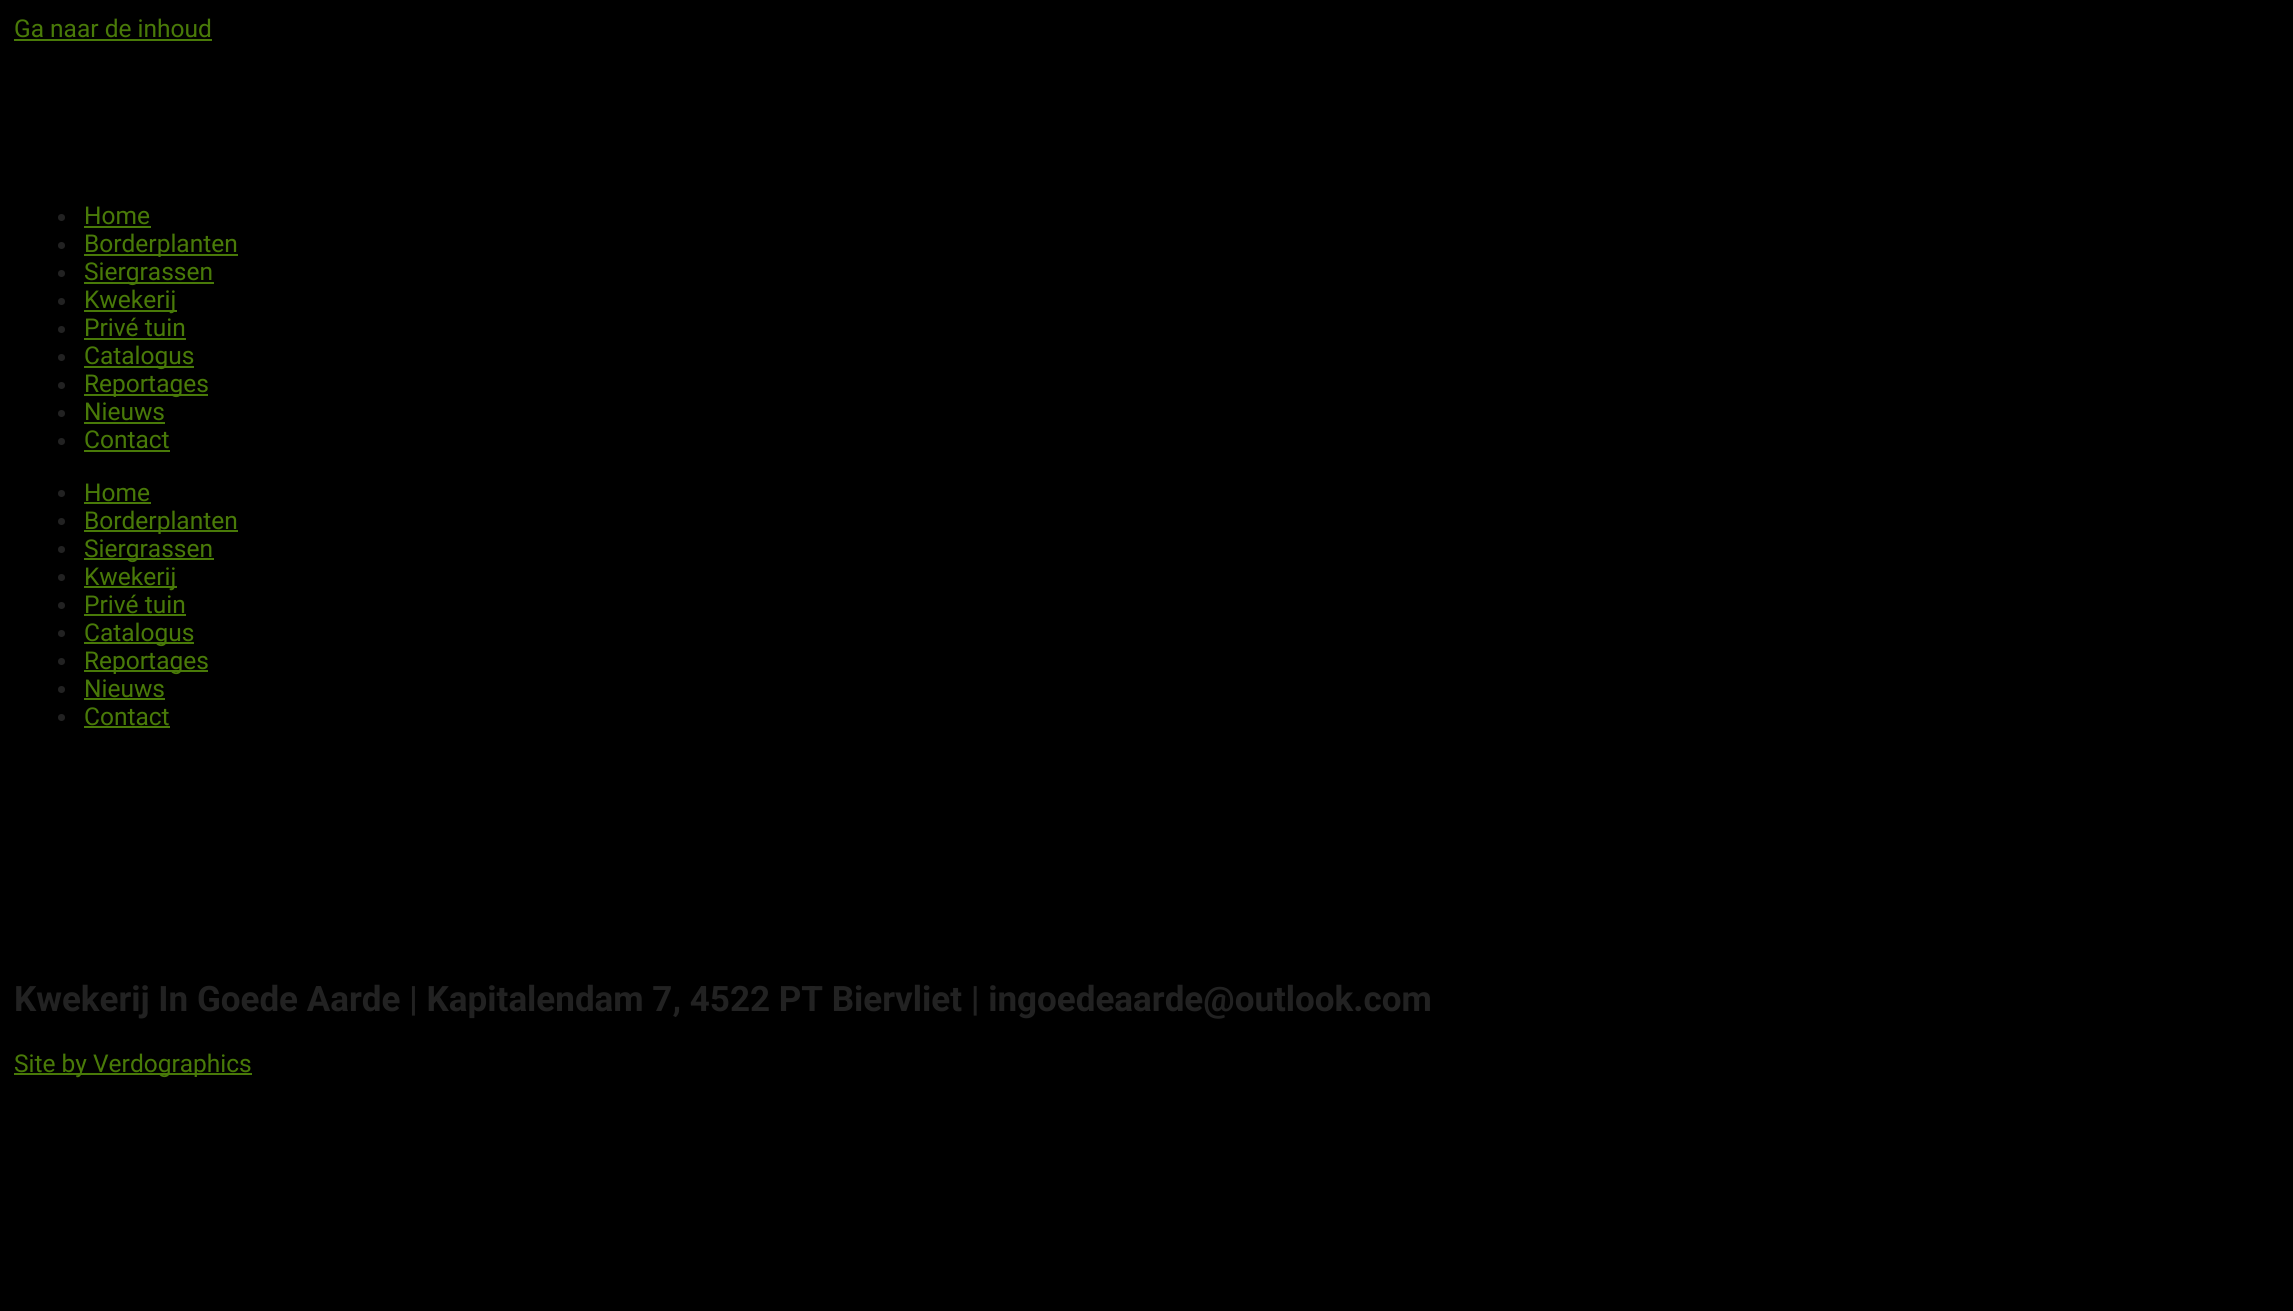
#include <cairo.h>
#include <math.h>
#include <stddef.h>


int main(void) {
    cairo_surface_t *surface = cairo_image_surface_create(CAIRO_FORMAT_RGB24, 2293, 1311);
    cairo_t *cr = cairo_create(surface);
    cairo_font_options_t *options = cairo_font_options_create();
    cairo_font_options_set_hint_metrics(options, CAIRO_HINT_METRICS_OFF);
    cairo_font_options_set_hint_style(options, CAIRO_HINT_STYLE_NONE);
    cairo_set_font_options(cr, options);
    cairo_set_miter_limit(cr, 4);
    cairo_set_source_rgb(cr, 0, 0, 0);
    cairo_paint(cr);
    cairo_select_font_face(cr, "Roboto", CAIRO_FONT_SLANT_NORMAL, CAIRO_FONT_WEIGHT_NORMAL);
    cairo_set_font_size(cr, 24.5);
    cairo_set_source_rgb(cr, 0.286, 0.478, 0.035);
    cairo_move_to(cr, 14, 37);
    cairo_show_text(cr, "Ga naar de inhoud");
    cairo_rectangle(cr, 14, 39, 198, 2);
    cairo_fill(cr);
    cairo_set_source_rgb(cr, 0.133, 0.133, 0.133);
    cairo_arc(cr, 61.5, 217.5, 3.5, 0, 2 * M_PI);
    cairo_fill(cr);
    cairo_set_source_rgb(cr, 0.286, 0.478, 0.035);
    cairo_move_to(cr, 84, 224);
    cairo_show_text(cr, "Home");
    cairo_rectangle(cr, 84, 226, 67, 2);
    cairo_fill(cr);
    cairo_set_source_rgb(cr, 0.133, 0.133, 0.133);
    cairo_arc(cr, 61.5, 245.5, 3.5, 0, 2 * M_PI);
    cairo_fill(cr);
    cairo_set_source_rgb(cr, 0.286, 0.478, 0.035);
    cairo_rectangle(cr, 84, 254, 154, 2);
    cairo_fill(cr);
    cairo_move_to(cr, 84, 252);
    cairo_show_text(cr, "Borderplanten");
    cairo_set_source_rgb(cr, 0.133, 0.133, 0.133);
    cairo_new_path(cr);
    cairo_arc(cr, 61.5, 273.5, 3.5, 0, 2 * M_PI);
    cairo_fill(cr);
    cairo_set_source_rgb(cr, 0.286, 0.478, 0.035);
    cairo_rectangle(cr, 84, 282, 130, 2);
    cairo_fill(cr);
    cairo_move_to(cr, 84, 280);
    cairo_show_text(cr, "Siergrassen");
    cairo_set_source_rgb(cr, 0.133, 0.133, 0.133);
    cairo_new_path(cr);
    cairo_arc(cr, 61.5, 301.5, 3.5, 0, 2 * M_PI);
    cairo_fill(cr);
    cairo_set_source_rgb(cr, 0.286, 0.478, 0.035);
    cairo_rectangle(cr, 84, 310, 93, 2);
    cairo_fill(cr);
    cairo_move_to(cr, 84, 308);
    cairo_show_text(cr, "Kwekerij");
    cairo_set_source_rgb(cr, 0.133, 0.133, 0.133);
    cairo_new_path(cr);
    cairo_arc(cr, 61.5, 329.5, 3.5, 0, 2 * M_PI);
    cairo_fill(cr);
    cairo_set_source_rgb(cr, 0.286, 0.478, 0.035);
    cairo_move_to(cr, 84, 336);
    cairo_show_text(cr, "Privé tuin");
    cairo_rectangle(cr, 84, 338, 102, 2);
    cairo_fill(cr);
    cairo_set_source_rgb(cr, 0.133, 0.133, 0.133);
    cairo_arc(cr, 61.5, 357.5, 3.5, 0, 2 * M_PI);
    cairo_fill(cr);
    cairo_set_source_rgb(cr, 0.286, 0.478, 0.035);
    cairo_rectangle(cr, 84, 366, 110, 2);
    cairo_fill(cr);
    cairo_move_to(cr, 84, 364);
    cairo_show_text(cr, "Catalogus");
    cairo_set_source_rgb(cr, 0.133, 0.133, 0.133);
    cairo_new_path(cr);
    cairo_arc(cr, 61.5, 385.5, 3.5, 0, 2 * M_PI);
    cairo_fill(cr);
    cairo_set_source_rgb(cr, 0.286, 0.478, 0.035);
    cairo_rectangle(cr, 84, 394, 124, 2);
    cairo_fill(cr);
    cairo_move_to(cr, 84, 392);
    cairo_show_text(cr, "Reportages");
    cairo_set_source_rgb(cr, 0.133, 0.133, 0.133);
    cairo_new_path(cr);
    cairo_arc(cr, 61.5, 413.5, 3.5, 0, 2 * M_PI);
    cairo_fill(cr);
    cairo_set_source_rgb(cr, 0.286, 0.478, 0.035);
    cairo_move_to(cr, 84, 420);
    cairo_show_text(cr, "Nieuws");
    cairo_rectangle(cr, 84, 422, 81, 2);
    cairo_fill(cr);
    cairo_set_source_rgb(cr, 0.133, 0.133, 0.133);
    cairo_arc(cr, 61.5, 441.5, 3.5, 0, 2 * M_PI);
    cairo_fill(cr);
    cairo_set_source_rgb(cr, 0.286, 0.478, 0.035);
    cairo_move_to(cr, 84, 448);
    cairo_show_text(cr, "Contact");
    cairo_rectangle(cr, 84, 450, 86, 2);
    cairo_fill(cr);
    cairo_set_source_rgb(cr, 0.133, 0.133, 0.133);
    cairo_arc(cr, 61.5, 493.5, 3.5, 0, 2 * M_PI);
    cairo_fill(cr);
    cairo_set_source_rgb(cr, 0.286, 0.478, 0.035);
    cairo_move_to(cr, 84, 501);
    cairo_show_text(cr, "Home");
    cairo_rectangle(cr, 84, 502, 67, 2);
    cairo_fill(cr);
    cairo_set_source_rgb(cr, 0.133, 0.133, 0.133);
    cairo_arc(cr, 61.5, 521.5, 3.5, 0, 2 * M_PI);
    cairo_fill(cr);
    cairo_set_source_rgb(cr, 0.286, 0.478, 0.035);
    cairo_rectangle(cr, 84, 530, 154, 2);
    cairo_fill(cr);
    cairo_move_to(cr, 84, 529);
    cairo_show_text(cr, "Borderplanten");
    cairo_set_source_rgb(cr, 0.133, 0.133, 0.133);
    cairo_new_path(cr);
    cairo_arc(cr, 61.5, 549.5, 3.5, 0, 2 * M_PI);
    cairo_fill(cr);
    cairo_set_source_rgb(cr, 0.286, 0.478, 0.035);
    cairo_rectangle(cr, 84, 558, 130, 2);
    cairo_fill(cr);
    cairo_move_to(cr, 84, 557);
    cairo_show_text(cr, "Siergrassen");
    cairo_set_source_rgb(cr, 0.133, 0.133, 0.133);
    cairo_new_path(cr);
    cairo_arc(cr, 61.5, 577.5, 3.5, 0, 2 * M_PI);
    cairo_fill(cr);
    cairo_set_source_rgb(cr, 0.286, 0.478, 0.035);
    cairo_rectangle(cr, 84, 586, 93, 2);
    cairo_fill(cr);
    cairo_move_to(cr, 84, 585);
    cairo_show_text(cr, "Kwekerij");
    cairo_set_source_rgb(cr, 0.133, 0.133, 0.133);
    cairo_new_path(cr);
    cairo_arc(cr, 61.5, 605.5, 3.5, 0, 2 * M_PI);
    cairo_fill(cr);
    cairo_set_source_rgb(cr, 0.286, 0.478, 0.035);
    cairo_move_to(cr, 84, 613);
    cairo_show_text(cr, "Privé tuin");
    cairo_rectangle(cr, 84, 614, 102, 2);
    cairo_fill(cr);
    cairo_set_source_rgb(cr, 0.133, 0.133, 0.133);
    cairo_arc(cr, 61.5, 633.5, 3.5, 0, 2 * M_PI);
    cairo_fill(cr);
    cairo_set_source_rgb(cr, 0.286, 0.478, 0.035);
    cairo_rectangle(cr, 84, 642, 110, 2);
    cairo_fill(cr);
    cairo_move_to(cr, 84, 641);
    cairo_show_text(cr, "Catalogus");
    cairo_set_source_rgb(cr, 0.133, 0.133, 0.133);
    cairo_new_path(cr);
    cairo_arc(cr, 61.5, 661.5, 3.5, 0, 2 * M_PI);
    cairo_fill(cr);
    cairo_set_source_rgb(cr, 0.286, 0.478, 0.035);
    cairo_rectangle(cr, 84, 670, 124, 2);
    cairo_fill(cr);
    cairo_move_to(cr, 84, 669);
    cairo_show_text(cr, "Reportages");
    cairo_set_source_rgb(cr, 0.133, 0.133, 0.133);
    cairo_new_path(cr);
    cairo_arc(cr, 61.5, 689.5, 3.5, 0, 2 * M_PI);
    cairo_fill(cr);
    cairo_set_source_rgb(cr, 0.286, 0.478, 0.035);
    cairo_move_to(cr, 84, 697);
    cairo_show_text(cr, "Nieuws");
    cairo_rectangle(cr, 84, 698, 81, 2);
    cairo_fill(cr);
    cairo_set_source_rgb(cr, 0.133, 0.133, 0.133);
    cairo_arc(cr, 61.5, 717.5, 3.5, 0, 2 * M_PI);
    cairo_fill(cr);
    cairo_set_source_rgb(cr, 0.286, 0.478, 0.035);
    cairo_move_to(cr, 84, 725);
    cairo_show_text(cr, "Contact");
    cairo_rectangle(cr, 84, 726, 86, 2);
    cairo_fill(cr);
    cairo_select_font_face(cr, "Roboto", CAIRO_FONT_SLANT_NORMAL, CAIRO_FONT_WEIGHT_BOLD);
    cairo_set_font_size(cr, 35);
    cairo_set_source_rgb(cr, 0.133, 0.133, 0.133);
    cairo_move_to(cr, 14, 1011);
    cairo_show_text(cr, "Kwekerij In Goede Aarde | Kapitalendam 7, 4522 PT Biervliet | ingoedeaarde@outlook.com");
    cairo_set_source_rgb(cr, 0.286, 0.478, 0.035);
    cairo_rectangle(cr, 14, 1073, 238, 2);
    cairo_fill(cr);
    cairo_select_font_face(cr, "Roboto", CAIRO_FONT_SLANT_NORMAL, CAIRO_FONT_WEIGHT_NORMAL);
    cairo_set_font_size(cr, 24.5);
    cairo_move_to(cr, 14, 1072);
    cairo_show_text(cr, "Site by Verdographics");
    cairo_surface_write_to_png(surface, "page.png");
    cairo_font_options_destroy(options);
    cairo_destroy(cr);
    cairo_surface_destroy(surface);
    return 0;
}
